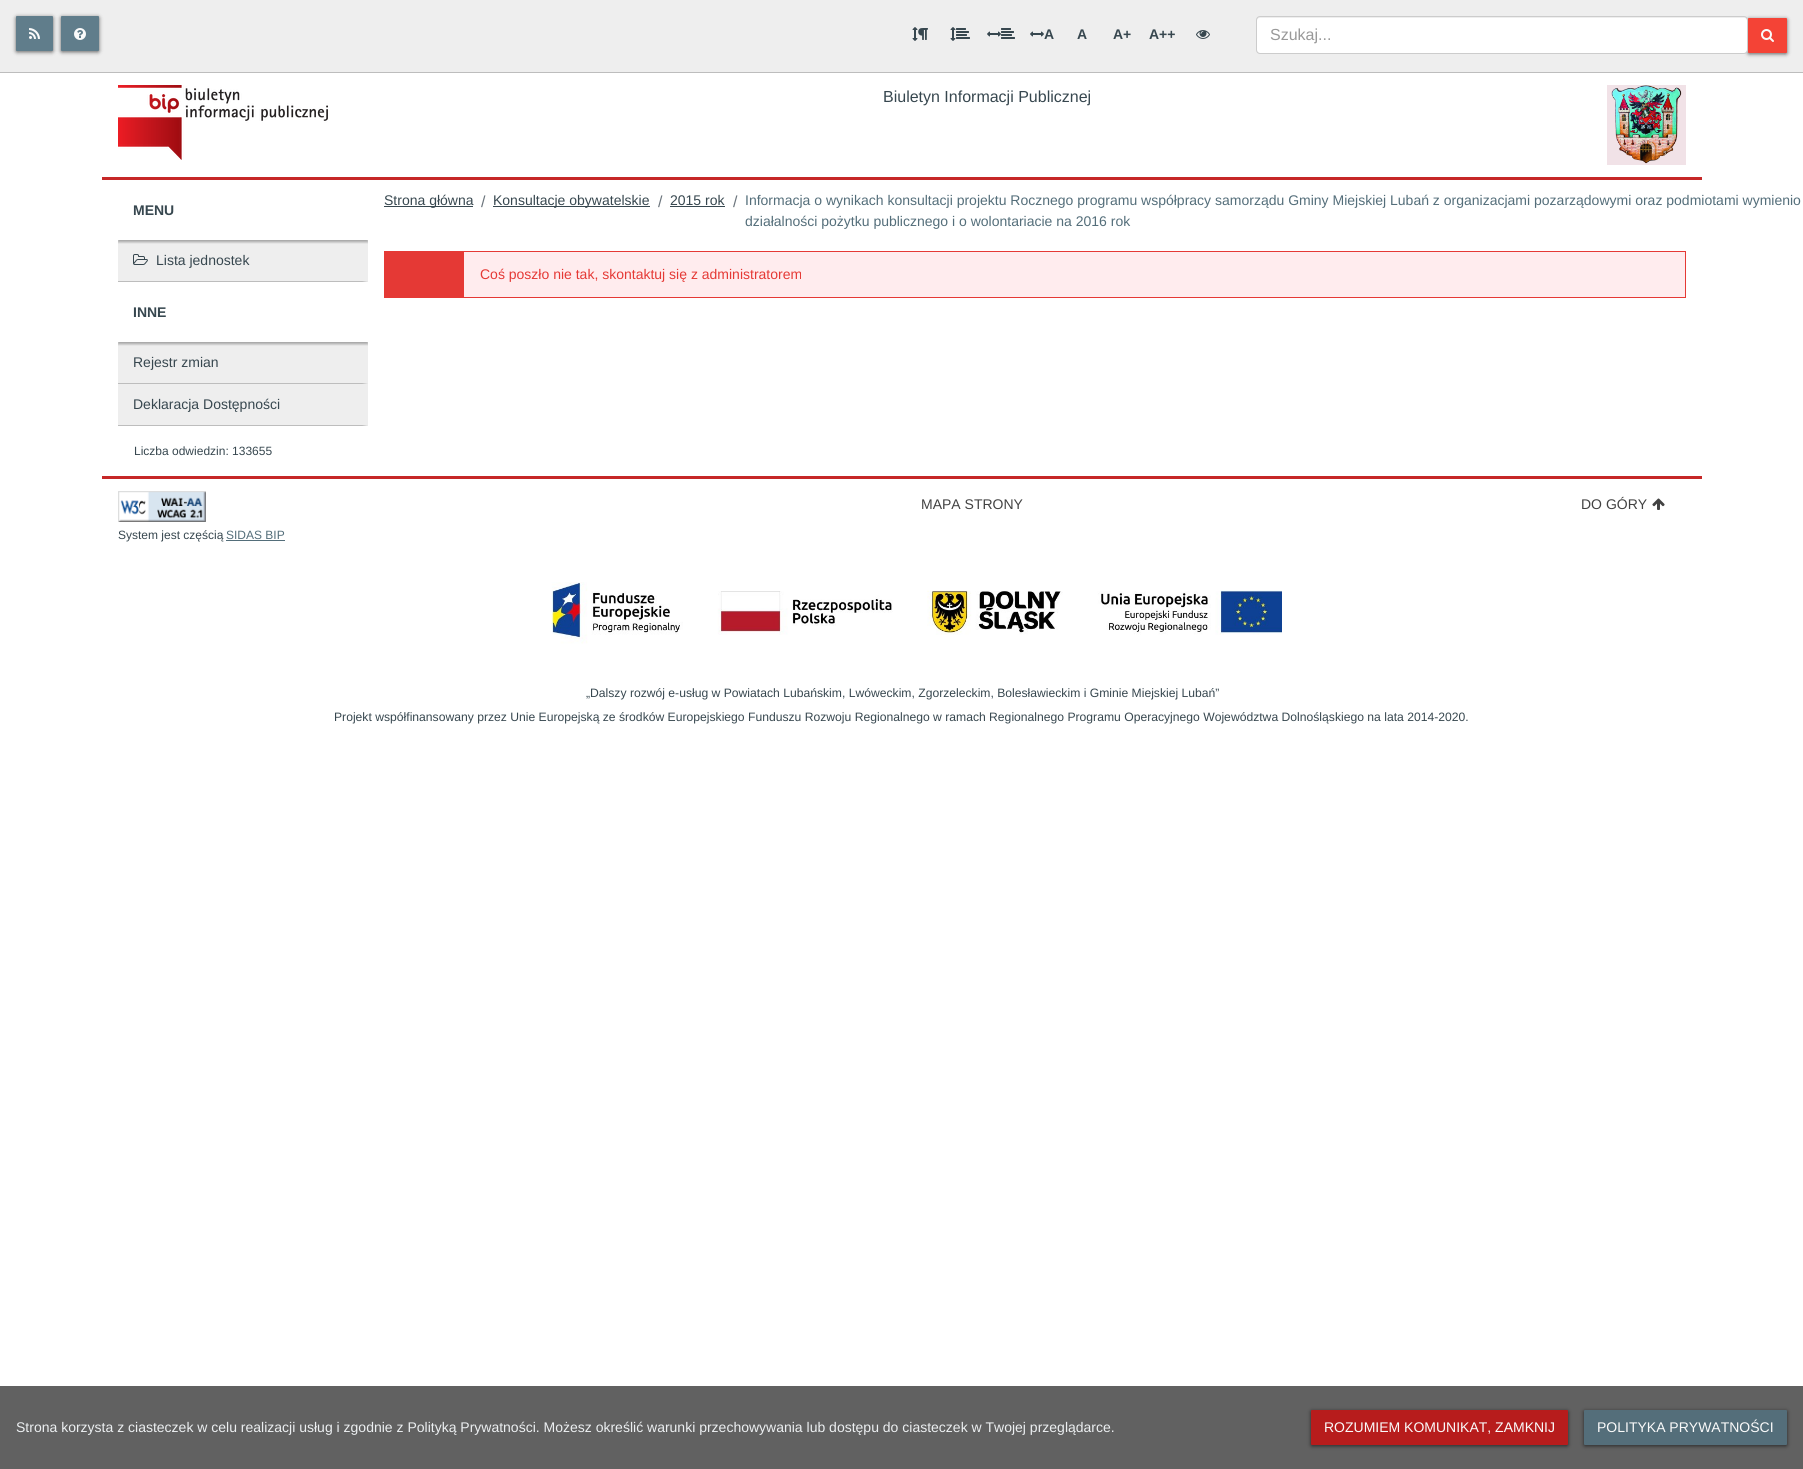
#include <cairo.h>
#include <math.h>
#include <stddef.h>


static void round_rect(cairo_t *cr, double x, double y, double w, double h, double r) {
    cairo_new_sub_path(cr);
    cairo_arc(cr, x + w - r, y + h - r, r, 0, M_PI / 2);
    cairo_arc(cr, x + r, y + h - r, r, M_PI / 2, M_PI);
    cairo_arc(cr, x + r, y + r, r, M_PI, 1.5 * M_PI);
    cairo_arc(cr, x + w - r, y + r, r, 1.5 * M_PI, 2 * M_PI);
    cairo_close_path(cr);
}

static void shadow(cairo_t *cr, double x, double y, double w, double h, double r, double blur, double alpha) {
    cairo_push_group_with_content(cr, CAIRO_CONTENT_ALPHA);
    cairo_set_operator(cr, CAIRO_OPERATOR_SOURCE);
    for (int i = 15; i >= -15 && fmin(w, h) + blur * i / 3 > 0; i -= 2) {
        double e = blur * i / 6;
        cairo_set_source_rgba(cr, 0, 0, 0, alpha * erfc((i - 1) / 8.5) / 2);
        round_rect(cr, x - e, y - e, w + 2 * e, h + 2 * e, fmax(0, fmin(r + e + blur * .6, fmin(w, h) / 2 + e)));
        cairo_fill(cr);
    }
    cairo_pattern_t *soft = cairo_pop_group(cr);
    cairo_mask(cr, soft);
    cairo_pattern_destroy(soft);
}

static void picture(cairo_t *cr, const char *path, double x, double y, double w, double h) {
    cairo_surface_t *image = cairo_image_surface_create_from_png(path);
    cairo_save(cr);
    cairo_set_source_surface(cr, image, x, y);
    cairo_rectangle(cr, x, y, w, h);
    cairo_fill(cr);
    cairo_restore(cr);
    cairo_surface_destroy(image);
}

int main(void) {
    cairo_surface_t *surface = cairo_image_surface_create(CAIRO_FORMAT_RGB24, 1803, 1469);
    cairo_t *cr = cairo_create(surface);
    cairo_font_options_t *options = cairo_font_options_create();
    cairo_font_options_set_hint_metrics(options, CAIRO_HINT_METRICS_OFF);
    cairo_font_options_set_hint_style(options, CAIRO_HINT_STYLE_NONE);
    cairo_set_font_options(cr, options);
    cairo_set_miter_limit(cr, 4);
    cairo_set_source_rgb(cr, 1, 1, 1);
    cairo_paint(cr);
    cairo_set_source_rgb(cr, 0.933, 0.933, 0.933);
    cairo_rectangle(cr, 0, 0, 1803, 72);
    cairo_fill(cr);
    cairo_set_source_rgb(cr, 0.741, 0.741, 0.741);
    cairo_rectangle(cr, 0, 72, 1803, 1);
    cairo_fill(cr);
    cairo_set_source_rgb(cr, 0, 0, 0);
    shadow(cr, 16, 17, 37, 35, 1, 2, 0.6);
    cairo_set_source_rgb(cr, 0.376, 0.49, 0.545);
    round_rect(cr, 16, 16, 37, 35, 1);
    cairo_fill(cr);
    picture(cr, "img1.png", 29, 28, 11, 11);
    cairo_set_source_rgb(cr, 0, 0, 0);
    shadow(cr, 61, 17, 38, 35, 1, 2, 0.6);
    cairo_set_source_rgb(cr, 0.376, 0.49, 0.545);
    round_rect(cr, 61, 16, 38, 35, 1);
    cairo_fill(cr);
    picture(cr, "img2.png", 74, 28, 12, 12);
    picture(cr, "img3.png", 912, 27, 6, 14);
    picture(cr, "img4.png", 918, 28, 10, 12);
    picture(cr, "img3.png", 950, 27, 6, 14);
    picture(cr, "img5.png", 956, 28, 14, 11);
    picture(cr, "img6.png", 987, 31, 14, 6);
    picture(cr, "img5.png", 1001, 28, 14, 11);
    picture(cr, "img6.png", 1030, 31, 14, 6);
    cairo_select_font_face(cr, "Liberation Sans", CAIRO_FONT_SLANT_NORMAL, CAIRO_FONT_WEIGHT_BOLD);
    cairo_set_font_size(cr, 14);
    cairo_set_source_rgb(cr, 0.216, 0.278, 0.31);
    cairo_move_to(cr, 1044, 39);
    cairo_show_text(cr, "A");
    cairo_move_to(cr, 1077, 39);
    cairo_show_text(cr, "A");
    cairo_move_to(cr, 1113, 39);
    cairo_show_text(cr, "A+");
    cairo_move_to(cr, 1149, 39);
    cairo_show_text(cr, "A++");
    picture(cr, "img7.png", 1196, 30, 14, 9);
    cairo_set_source_rgb(cr, 0, 0, 0);
    shadow(cr, 1748, 19, 39, 35, 1, 2, 0.6);
    cairo_set_source_rgb(cr, 1, 1, 1);
    round_rect(cr, 1257, 17, 490, 36, 3);
    cairo_fill(cr);
    cairo_set_source_rgba(cr, 0, 0, 0, 0.07);
    cairo_new_path(cr);
    cairo_move_to(cr, 1260, 18);
    cairo_line_to(cr, 1744, 18);
    cairo_curve_to(cr, 1746, 18, 1747, 19, 1747, 21);
    cairo_line_to(cr, 1747, 20);
    cairo_curve_to(cr, 1747, 18, 1746, 17, 1744, 17);
    cairo_line_to(cr, 1260, 17);
    cairo_curve_to(cr, 1258, 17, 1257, 18, 1257, 20);
    cairo_line_to(cr, 1257, 21);
    cairo_curve_to(cr, 1257, 19, 1258, 18, 1260, 18);
    cairo_close_path(cr);
    cairo_fill(cr);
    round_rect(cr, 1256.5, 16.5, 491, 37, 3.5);
    cairo_set_source_rgb(cr, 0.8, 0.8, 0.8);
    cairo_set_line_width(cr, 1);
    cairo_stroke(cr);
    cairo_select_font_face(cr, "Liberation Sans", CAIRO_FONT_SLANT_NORMAL, CAIRO_FONT_WEIGHT_NORMAL);
    cairo_set_font_size(cr, 16);
    cairo_set_source_rgb(cr, 0.6, 0.6, 0.6);
    cairo_move_to(cr, 1270, 40);
    cairo_show_text(cr, "Szukaj...");
    cairo_set_source_rgb(cr, 0.957, 0.263, 0.212);
    round_rect(cr, 1748, 18, 39, 35, 1);
    cairo_fill(cr);
    picture(cr, "img8.png", 1761, 29, 13, 13);
    cairo_set_source_rgb(cr, 0.776, 0.157, 0.157);
    cairo_rectangle(cr, 102, 177, 1600, 3);
    cairo_fill(cr);
    picture(cr, "img9.png", 118, 85, 210, 75);
    cairo_set_source_rgb(cr, 0.216, 0.278, 0.31);
    cairo_move_to(cr, 883, 102);
    cairo_show_text(cr, "Biuletyn Informacji Publicznej");
    picture(cr, "img10.png", 1607, 85, 79, 80);
    cairo_set_source_rgb(cr, 0.933, 0.933, 0.933);
    cairo_rectangle(cr, 118, 240, 250, 42);
    cairo_fill(cr);
    cairo_save(cr);
    cairo_rectangle(cr, 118, 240, 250, 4);
    cairo_clip(cr);
    cairo_set_source_rgb(cr, 0, 0, 0);
    shadow(cr, 118, 182, 250, 60, 0, 1.5, 0.24);
    cairo_restore(cr);
    cairo_save(cr);
    cairo_rectangle(cr, 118, 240, 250, 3);
    cairo_clip(cr);
    cairo_set_source_rgb(cr, 0, 0, 0);
    shadow(cr, 118, 182, 250, 60, 0, 1.5, 0.12);
    cairo_restore(cr);
    cairo_select_font_face(cr, "Liberation Sans", CAIRO_FONT_SLANT_NORMAL, CAIRO_FONT_WEIGHT_BOLD);
    cairo_set_font_size(cr, 14);
    cairo_set_source_rgb(cr, 0.216, 0.278, 0.31);
    cairo_move_to(cr, 133, 215);
    cairo_show_text(cr, "MENU");
    cairo_set_source_rgb(cr, 0.741, 0.741, 0.741);
    cairo_new_path(cr);
    cairo_move_to(cr, 368, 282);
    cairo_line_to(cr, 118, 282);
    cairo_line_to(cr, 118, 281);
    cairo_line_to(cr, 362, 281);
    cairo_close_path(cr);
    cairo_fill(cr);
    picture(cr, "img11.png", 133, 254, 15, 11);
    cairo_select_font_face(cr, "Liberation Sans", CAIRO_FONT_SLANT_NORMAL, CAIRO_FONT_WEIGHT_NORMAL);
    cairo_set_source_rgb(cr, 0.216, 0.278, 0.31);
    cairo_move_to(cr, 156, 265);
    cairo_show_text(cr, "Lista jednostek");
    cairo_set_source_rgb(cr, 0.933, 0.933, 0.933);
    cairo_rectangle(cr, 118, 342, 250, 84);
    cairo_fill(cr);
    cairo_save(cr);
    cairo_rectangle(cr, 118, 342, 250, 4);
    cairo_clip(cr);
    cairo_set_source_rgb(cr, 0, 0, 0);
    shadow(cr, 118, 284, 250, 60, 0, 1.5, 0.24);
    cairo_restore(cr);
    cairo_save(cr);
    cairo_rectangle(cr, 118, 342, 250, 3);
    cairo_clip(cr);
    cairo_set_source_rgb(cr, 0, 0, 0);
    shadow(cr, 118, 284, 250, 60, 0, 1.5, 0.12);
    cairo_restore(cr);
    cairo_select_font_face(cr, "Liberation Sans", CAIRO_FONT_SLANT_NORMAL, CAIRO_FONT_WEIGHT_BOLD);
    cairo_set_source_rgb(cr, 0.216, 0.278, 0.31);
    cairo_move_to(cr, 133, 317);
    cairo_show_text(cr, "INNE");
    cairo_set_source_rgb(cr, 0.741, 0.741, 0.741);
    cairo_new_path(cr);
    cairo_move_to(cr, 368, 384);
    cairo_line_to(cr, 118, 384);
    cairo_line_to(cr, 118, 383);
    cairo_line_to(cr, 362, 383);
    cairo_close_path(cr);
    cairo_fill(cr);
    cairo_select_font_face(cr, "Liberation Sans", CAIRO_FONT_SLANT_NORMAL, CAIRO_FONT_WEIGHT_NORMAL);
    cairo_set_source_rgb(cr, 0.216, 0.278, 0.31);
    cairo_move_to(cr, 133, 367);
    cairo_show_text(cr, "Rejestr zmian");
    cairo_set_source_rgb(cr, 0.741, 0.741, 0.741);
    cairo_new_path(cr);
    cairo_move_to(cr, 368, 426);
    cairo_line_to(cr, 118, 426);
    cairo_line_to(cr, 118, 425);
    cairo_line_to(cr, 362, 425);
    cairo_close_path(cr);
    cairo_fill(cr);
    cairo_set_source_rgb(cr, 0.216, 0.278, 0.31);
    cairo_move_to(cr, 133, 409);
    cairo_show_text(cr, "Deklaracja Dostępności");
    cairo_set_font_size(cr, 12);
    cairo_move_to(cr, 134, 455);
    cairo_show_text(cr, "Liczba odwiedzin: 133655");
    cairo_rectangle(cr, 384, 206, 89, 1);
    cairo_fill(cr);
    cairo_set_font_size(cr, 14);
    cairo_move_to(cr, 384, 205);
    cairo_show_text(cr, "Strona główna");
    cairo_set_font_size(cr, 16);
    cairo_set_source_rgb(cr, 0.424, 0.459, 0.49);
    cairo_move_to(cr, 481, 207);
    cairo_show_text(cr, "/");
    cairo_set_source_rgb(cr, 0.216, 0.278, 0.31);
    cairo_rectangle(cr, 493, 206, 157, 1);
    cairo_fill(cr);
    cairo_set_font_size(cr, 14);
    cairo_move_to(cr, 493, 205);
    cairo_show_text(cr, "Konsultacje obywatelskie");
    cairo_set_font_size(cr, 16);
    cairo_set_source_rgb(cr, 0.424, 0.459, 0.49);
    cairo_move_to(cr, 658, 207);
    cairo_show_text(cr, "/");
    cairo_set_font_size(cr, 14);
    cairo_set_source_rgb(cr, 0.216, 0.278, 0.31);
    cairo_move_to(cr, 670, 205);
    cairo_show_text(cr, "2015 rok");
    cairo_rectangle(cr, 670, 206, 55, 1);
    cairo_fill(cr);
    cairo_set_font_size(cr, 16);
    cairo_set_source_rgb(cr, 0.424, 0.459, 0.49);
    cairo_move_to(cr, 733, 207);
    cairo_show_text(cr, "/");
    cairo_set_font_size(cr, 14);
    cairo_set_source_rgb(cr, 0.329, 0.431, 0.478);
    cairo_move_to(cr, 745, 205);
    cairo_show_text(cr, "Informacja o wynikach konsultacji projektu Rocznego programu współpracy samorządu Gminy Miejskiej Lubań z organizacjami pozarządowymi oraz podmiotami wymienio");
    cairo_move_to(cr, 745, 226);
    cairo_show_text(cr, "działalności pożytku publicznego i o wolontariacie na 2016 rok");
    cairo_set_source_rgb(cr, 1, 0.922, 0.933);
    cairo_rectangle(cr, 464, 252, 1221, 45);
    cairo_fill(cr);
    cairo_set_source_rgb(cr, 0.898, 0.224, 0.208);
    cairo_rectangle(cr, 464, 251, 1222, 1);
    cairo_fill(cr);
    cairo_rectangle(cr, 1685, 251, 1, 47);
    cairo_fill(cr);
    cairo_rectangle(cr, 464, 297, 1222, 1);
    cairo_fill(cr);
    cairo_rectangle(cr, 384, 251, 80, 47);
    cairo_fill(cr);
    cairo_move_to(cr, 480, 279);
    cairo_show_text(cr, "Coś poszło nie tak, skontaktuj się z administratorem");
    cairo_set_source_rgb(cr, 0.776, 0.157, 0.157);
    cairo_rectangle(cr, 102, 476, 1600, 3);
    cairo_fill(cr);
    cairo_set_source_rgb(cr, 0.259, 0.259, 0.259);
    cairo_move_to(cr, 921, 509);
    cairo_show_text(cr, "MAPA STRONY");
    cairo_move_to(cr, 1581, 509);
    cairo_show_text(cr, "DO GÓRY");
    picture(cr, "img12.png", 1652, 498, 13, 12);
    picture(cr, "img13.png", 118, 491, 88, 31);
    cairo_set_font_size(cr, 12);
    cairo_set_source_rgb(cr, 0.216, 0.278, 0.31);
    cairo_move_to(cr, 118, 539);
    cairo_show_text(cr, "System jest częścią");
    cairo_set_source_rgb(cr, 0.329, 0.431, 0.478);
    cairo_move_to(cr, 226, 539);
    cairo_show_text(cr, "SIDAS BIP");
    cairo_rectangle(cr, 226, 540, 59, 1);
    cairo_fill(cr);
    picture(cr, "img14.png", 550, 582, 732, 62);
    cairo_set_font_size(cr, 12.15);
    cairo_set_source_rgb(cr, 0.216, 0.278, 0.31);
    cairo_move_to(cr, 586, 697);
    cairo_show_text(cr, "„Dalszy rozwój e-usług w Powiatach Lubańskim, Lwóweckim, Zgorzeleckim, Bolesławieckim i Gminie Miejskiej Lubań”");
    cairo_move_to(cr, 334, 721);
    cairo_show_text(cr, "Projekt współfinansowany przez Unie Europejską ze środków Europejskiego Funduszu Rozwoju Regionalnego w ramach Regionalnego Programu Operacyjnego Województwa Dolnośląskiego na lata 2014-2020.");
    cairo_set_source_rgb(cr, 0.38, 0.38, 0.38);
    cairo_rectangle(cr, 0, 1386, 1803, 83);
    cairo_fill(cr);
    cairo_set_font_size(cr, 14);
    cairo_set_source_rgb(cr, 0.925, 0.937, 0.945);
    cairo_move_to(cr, 16, 1432);
    cairo_show_text(cr, "Strona korzysta z ciasteczek w celu realizacji usług i zgodnie z Polityką Prywatności. Możesz określić warunki przechowywania lub dostępu do ciasteczek w Twojej przeglądarce.");
    cairo_set_source_rgb(cr, 0, 0, 0);
    shadow(cr, 1311, 1411, 257, 35, 1, 2, 0.6);
    cairo_set_source_rgb(cr, 0.718, 0.11, 0.11);
    round_rect(cr, 1311, 1410, 257, 35, 1);
    cairo_fill(cr);
    cairo_set_source_rgb(cr, 0.98, 0.98, 0.98);
    cairo_move_to(cr, 1324, 1432);
    cairo_show_text(cr, "ROZUMIEM KOMUNIKAT, ZAMKNIJ");
    cairo_set_source_rgb(cr, 0, 0, 0);
    shadow(cr, 1584, 1411, 203, 35, 1, 2, 0.6);
    cairo_set_source_rgb(cr, 0.329, 0.431, 0.478);
    round_rect(cr, 1584, 1410, 203, 35, 1);
    cairo_fill(cr);
    cairo_set_source_rgb(cr, 0.98, 0.98, 0.98);
    cairo_move_to(cr, 1597, 1432);
    cairo_show_text(cr, "POLITYKA PRYWATNOŚCI");
    cairo_surface_write_to_png(surface, "page.png");
    cairo_font_options_destroy(options);
    cairo_destroy(cr);
    cairo_surface_destroy(surface);
    return 0;
}
